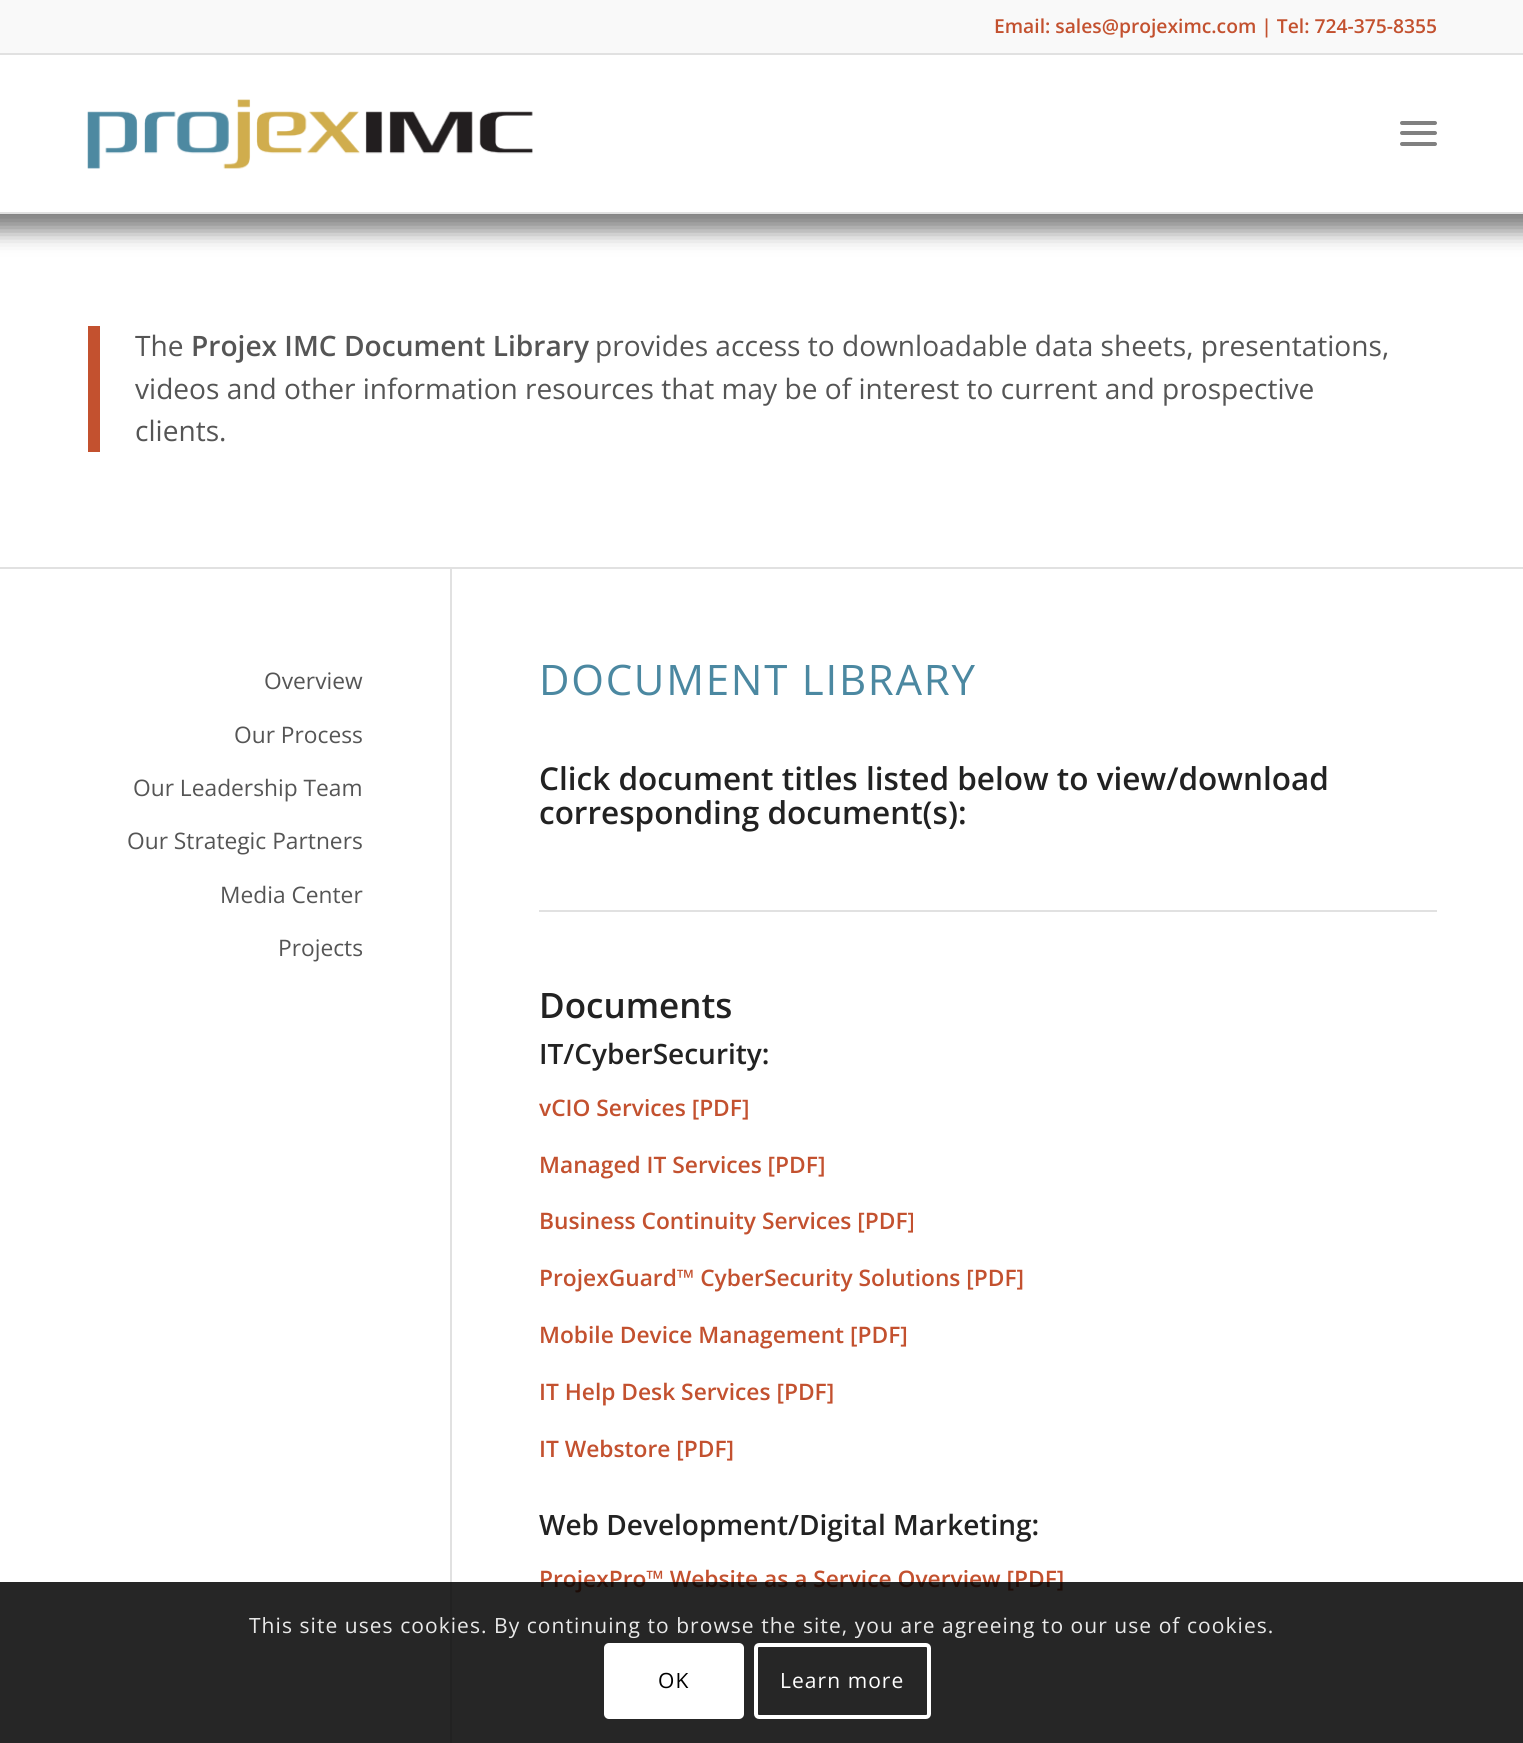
#include <cairo.h>
#include <math.h>
#include <stddef.h>


static void spaced_text(cairo_t *cr, double x, double y, const char *s, double letter, double word) {
    cairo_move_to(cr, x, y);
    while (*s) {
        char ch[5] = {0};
        int n = 0;
        do ch[n++] = *s++; while ((*s & 0xC0) == 0x80);
        cairo_show_text(cr, ch);
        cairo_rel_move_to(cr, letter + word * (*ch == ' '), 0);
    }
}

static void round_rect(cairo_t *cr, double x, double y, double w, double h, double r) {
    cairo_new_sub_path(cr);
    cairo_arc(cr, x + w - r, y + h - r, r, 0, M_PI / 2);
    cairo_arc(cr, x + r, y + h - r, r, M_PI / 2, M_PI);
    cairo_arc(cr, x + r, y + r, r, M_PI, 1.5 * M_PI);
    cairo_arc(cr, x + w - r, y + r, r, 1.5 * M_PI, 2 * M_PI);
    cairo_close_path(cr);
}

static void shadow(cairo_t *cr, double x, double y, double w, double h, double r, double blur, double alpha) {
    cairo_push_group_with_content(cr, CAIRO_CONTENT_ALPHA);
    cairo_set_operator(cr, CAIRO_OPERATOR_SOURCE);
    for (int i = 15; i >= -15 && fmin(w, h) + blur * i / 3 > 0; i -= 2) {
        double e = blur * i / 6;
        cairo_set_source_rgba(cr, 0, 0, 0, alpha * erfc((i - 1) / 8.5) / 2);
        round_rect(cr, x - e, y - e, w + 2 * e, h + 2 * e, fmax(0, fmin(r + e + blur * .6, fmin(w, h) / 2 + e)));
        cairo_fill(cr);
    }
    cairo_pattern_t *soft = cairo_pop_group(cr);
    cairo_mask(cr, soft);
    cairo_pattern_destroy(soft);
}

static void picture(cairo_t *cr, const char *path, double x, double y, double w, double h) {
    cairo_surface_t *image = cairo_image_surface_create_from_png(path);
    cairo_save(cr);
    cairo_set_source_surface(cr, image, x, y);
    cairo_rectangle(cr, x, y, w, h);
    cairo_fill(cr);
    cairo_restore(cr);
    cairo_surface_destroy(image);
}

int main(void) {
    cairo_surface_t *surface = cairo_image_surface_create(CAIRO_FORMAT_RGB24, 1523, 1743);
    cairo_t *cr = cairo_create(surface);
    cairo_font_options_t *options = cairo_font_options_create();
    cairo_font_options_set_hint_metrics(options, CAIRO_HINT_METRICS_OFF);
    cairo_font_options_set_hint_style(options, CAIRO_HINT_STYLE_NONE);
    cairo_set_font_options(cr, options);
    cairo_set_miter_limit(cr, 4);
    cairo_set_source_rgb(cr, 1, 1, 1);
    cairo_paint(cr);
    cairo_set_source_rgb(cr, 0, 0, 0);
    shadow(cr, -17, -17, 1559, 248, 0, 10.5, 0.5);
    cairo_set_source_rgb(cr, 0.973, 0.973, 0.973);
    cairo_rectangle(cr, 0, 0, 1523, 53);
    cairo_fill(cr);
    cairo_set_source_rgb(cr, 0.882, 0.882, 0.882);
    cairo_rectangle(cr, 0, 53, 1523, 2);
    cairo_fill(cr);
    cairo_select_font_face(cr, "Open Sans SemiBold", CAIRO_FONT_SLANT_NORMAL, CAIRO_FONT_WEIGHT_NORMAL);
    cairo_set_font_size(cr, 19.25);
    cairo_set_source_rgb(cr, 0.765, 0.318, 0.184);
    cairo_move_to(cr, 994, 33);
    cairo_show_text(cr, "Email: sales@projeximc.com | Tel: 724-375-8355");
    cairo_set_source_rgb(cr, 1, 1, 1);
    cairo_rectangle(cr, 0, 55, 1523, 157);
    cairo_fill(cr);
    cairo_set_source_rgb(cr, 0.882, 0.882, 0.882);
    cairo_rectangle(cr, 0, 212, 1523, 2);
    cairo_fill(cr);
    picture(cr, "img1.png", 87, 99, 446, 70);
    cairo_set_source_rgb(cr, 0.502, 0.502, 0.502);
    round_rect(cr, 1400, 131, 37, 4, 2);
    cairo_fill(cr);
    round_rect(cr, 1400, 121, 37, 4, 2);
    cairo_fill(cr);
    round_rect(cr, 1400, 142, 37, 4, 2);
    cairo_fill(cr);
    cairo_set_source_rgb(cr, 0.765, 0.318, 0.184);
    cairo_rectangle(cr, 88, 326, 12, 126);
    cairo_fill(cr);
    cairo_select_font_face(cr, "Open Sans", CAIRO_FONT_SLANT_NORMAL, CAIRO_FONT_WEIGHT_NORMAL);
    cairo_set_font_size(cr, 28.1);
    cairo_set_source_rgb(cr, 0.333, 0.333, 0.333);
    cairo_move_to(cr, 135, 356);
    cairo_show_text(cr, "The");
    cairo_select_font_face(cr, "Open Sans SemiBold", CAIRO_FONT_SLANT_NORMAL, CAIRO_FONT_WEIGHT_NORMAL);
    cairo_move_to(cr, 191, 356);
    cairo_show_text(cr, "Projex IMC Document Library");
    cairo_select_font_face(cr, "Open Sans", CAIRO_FONT_SLANT_NORMAL, CAIRO_FONT_WEIGHT_NORMAL);
    cairo_move_to(cr, 595, 356);
    cairo_show_text(cr, "provides access to downloadable data sheets, presentations,");
    cairo_move_to(cr, 135, 399);
    cairo_show_text(cr, "videos and other information resources that may be of interest to current and prospective");
    cairo_move_to(cr, 135, 441);
    cairo_show_text(cr, "clients.");
    cairo_set_source_rgb(cr, 0.882, 0.882, 0.882);
    cairo_rectangle(cr, 0, 567, 1523, 2);
    cairo_fill(cr);
    cairo_set_font_size(cr, 22.75);
    cairo_set_source_rgb(cr, 0.333, 0.333, 0.333);
    cairo_move_to(cr, 264, 689);
    cairo_show_text(cr, "Overview");
    cairo_move_to(cr, 234, 743);
    cairo_show_text(cr, "Our Process");
    cairo_move_to(cr, 133, 796);
    cairo_show_text(cr, "Our Leadership Team");
    cairo_move_to(cr, 127, 849);
    cairo_show_text(cr, "Our Strategic Partners");
    cairo_move_to(cr, 220, 903);
    cairo_show_text(cr, "Media Center");
    cairo_move_to(cr, 278, 956);
    cairo_show_text(cr, "Projects");
    cairo_set_source_rgb(cr, 0.882, 0.882, 0.882);
    cairo_rectangle(cr, 450, 569, 2, 1174);
    cairo_fill(cr);
    cairo_set_font_size(cr, 42);
    cairo_set_source_rgb(cr, 0.294, 0.533, 0.631);
    spaced_text(cr, 539, 695, "DOCUMENT LIBRARY", 1.75, 0);
    cairo_select_font_face(cr, "Open Sans SemiBold", CAIRO_FONT_SLANT_NORMAL, CAIRO_FONT_WEIGHT_NORMAL);
    cairo_set_font_size(cr, 31.5);
    cairo_set_source_rgb(cr, 0.133, 0.133, 0.133);
    cairo_move_to(cr, 539, 790);
    cairo_show_text(cr, "Click document titles listed below to view/download");
    cairo_move_to(cr, 539, 824);
    cairo_show_text(cr, "corresponding document(s):");
    cairo_set_source_rgb(cr, 0.882, 0.882, 0.882);
    cairo_rectangle(cr, 539, 910, 898, 2);
    cairo_fill(cr);
    cairo_set_font_size(cr, 35);
    cairo_set_source_rgb(cr, 0.133, 0.133, 0.133);
    cairo_move_to(cr, 539, 1018);
    cairo_show_text(cr, "Documents");
    cairo_set_font_size(cr, 28);
    cairo_move_to(cr, 539, 1064);
    cairo_show_text(cr, "IT/CyberSecurity:");
    cairo_set_font_size(cr, 22.75);
    cairo_set_source_rgb(cr, 0.765, 0.318, 0.184);
    cairo_move_to(cr, 539, 1116);
    cairo_show_text(cr, "vCIO Services [PDF]");
    cairo_move_to(cr, 539, 1173);
    cairo_show_text(cr, "Managed IT Services [PDF]");
    cairo_move_to(cr, 539, 1229);
    cairo_show_text(cr, "Business Continuity Services [PDF]");
    cairo_move_to(cr, 539, 1286);
    cairo_show_text(cr, "ProjexGuard™ CyberSecurity Solutions [PDF]");
    cairo_move_to(cr, 539, 1343);
    cairo_show_text(cr, "Mobile Device Management [PDF]");
    cairo_move_to(cr, 539, 1400);
    cairo_show_text(cr, "IT Help Desk Services [PDF]");
    cairo_move_to(cr, 539, 1457);
    cairo_show_text(cr, "IT Webstore [PDF]");
    cairo_set_font_size(cr, 28);
    cairo_set_source_rgb(cr, 0.133, 0.133, 0.133);
    cairo_move_to(cr, 539, 1535);
    cairo_show_text(cr, "Web Development/Digital Marketing:");
    cairo_set_font_size(cr, 22.75);
    cairo_set_source_rgb(cr, 0.765, 0.318, 0.184);
    cairo_move_to(cr, 539, 1587);
    cairo_show_text(cr, "ProjexPro™ Website as a Service Overview [PDF]");
    cairo_set_source_rgba(cr, 0, 0, 0, 0.85);
    cairo_rectangle(cr, 0, 1582, 1523, 161);
    cairo_fill(cr);
    cairo_select_font_face(cr, "Open Sans", CAIRO_FONT_SLANT_NORMAL, CAIRO_FONT_WEIGHT_NORMAL);
    cairo_set_font_size(cr, 21);
    cairo_set_source_rgb(cr, 0.914, 0.914, 0.914);
    spaced_text(cr, 249, 1633, "This site uses cookies. By continuing to browse the site, you are agreeing to our use of cookies.", 1.05, 0);
    cairo_set_source_rgb(cr, 1, 1, 1);
    round_rect(cr, 604, 1643, 140, 76, 5);
    cairo_fill(cr);
    cairo_set_source_rgb(cr, 0, 0, 0);
    spaced_text(cr, 658, 1688, "OK", 1.05, 0);
    round_rect(cr, 756, 1645, 173, 72, 3);
    cairo_set_source_rgb(cr, 1, 1, 1);
    cairo_set_line_width(cr, 4);
    cairo_stroke(cr);
    spaced_text(cr, 780, 1688, "Learn more", 1.05, 0);
    cairo_surface_write_to_png(surface, "page.png");
    cairo_font_options_destroy(options);
    cairo_destroy(cr);
    cairo_surface_destroy(surface);
    return 0;
}
